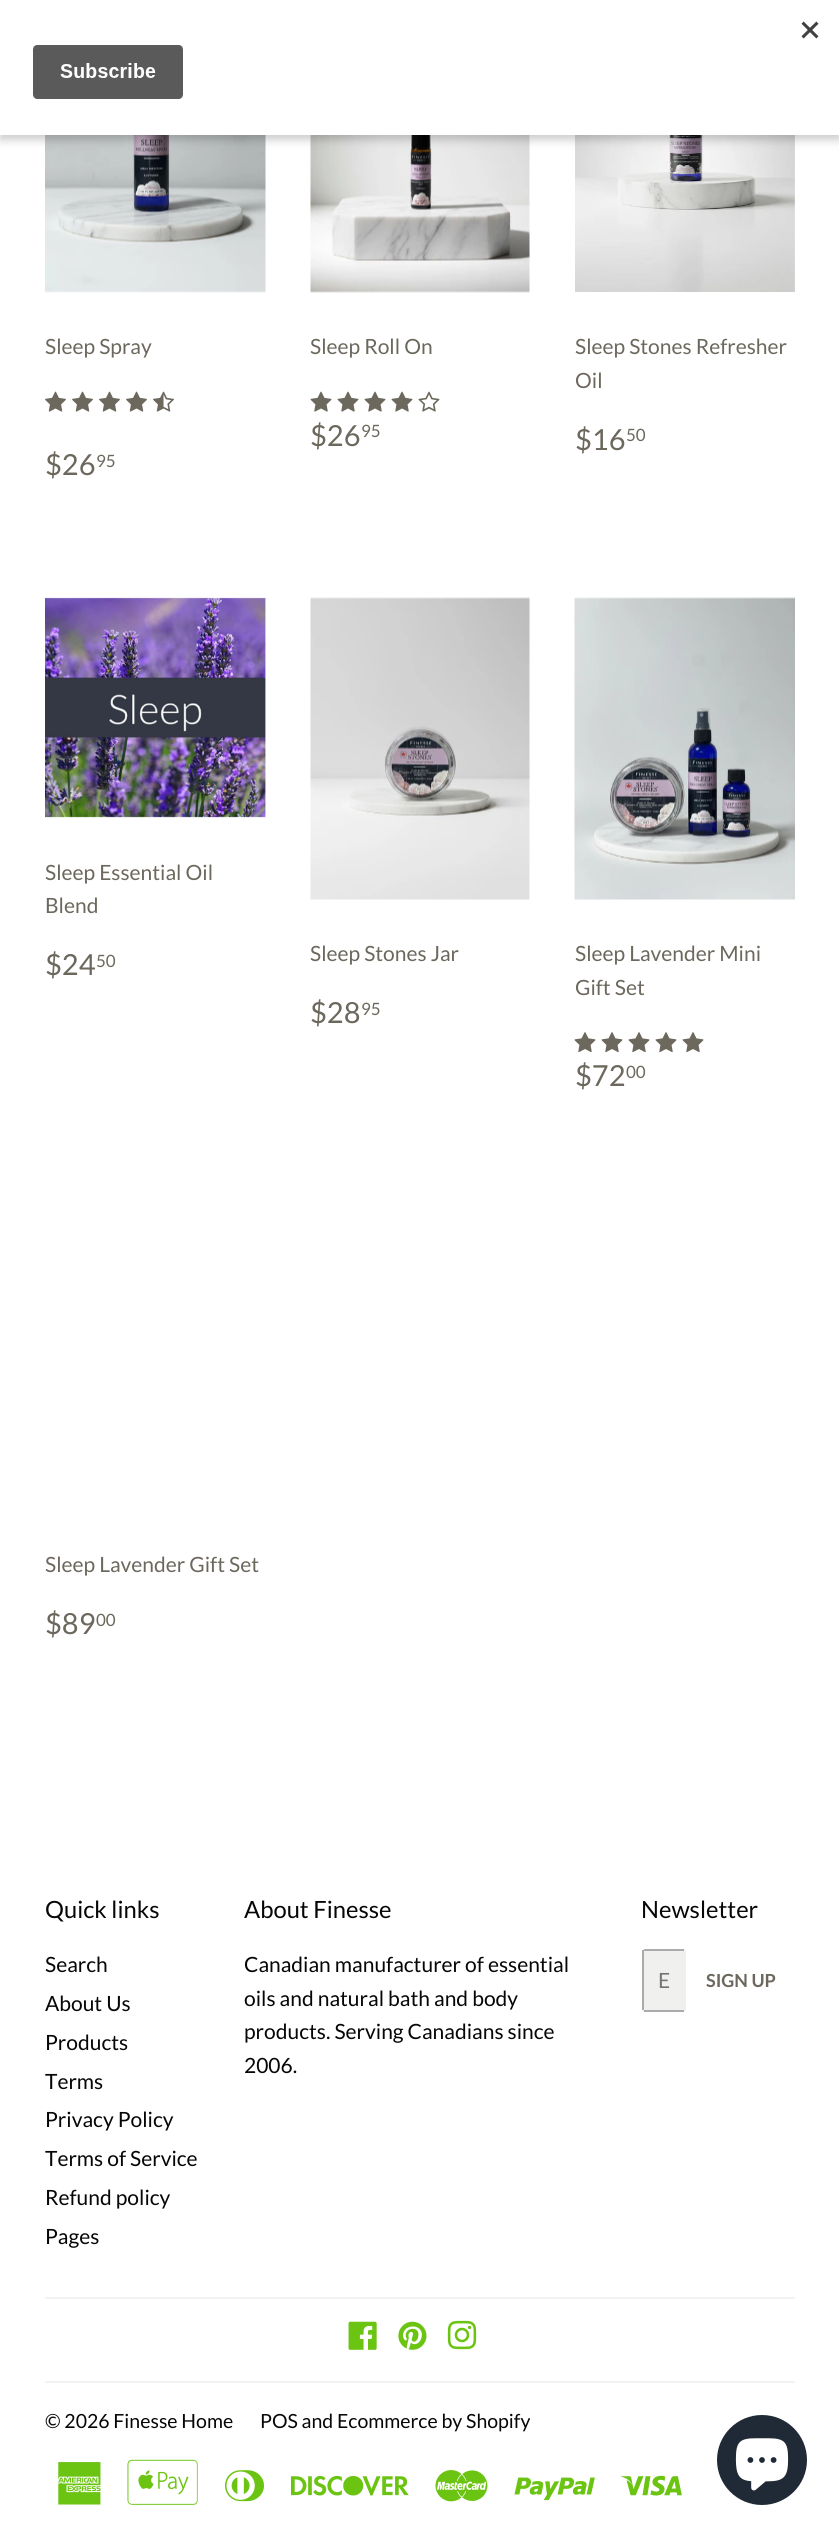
#include <cairo.h>
#include <math.h>
#include <stddef.h>


static void round_rect(cairo_t *cr, double x, double y, double w, double h, double r) {
    cairo_new_sub_path(cr);
    cairo_arc(cr, x + w - r, y + h - r, r, 0, M_PI / 2);
    cairo_arc(cr, x + r, y + h - r, r, M_PI / 2, M_PI);
    cairo_arc(cr, x + r, y + r, r, M_PI, 1.5 * M_PI);
    cairo_arc(cr, x + w - r, y + r, r, 1.5 * M_PI, 2 * M_PI);
    cairo_close_path(cr);
}

static void shadow(cairo_t *cr, double x, double y, double w, double h, double r, double blur, double alpha) {
    cairo_push_group_with_content(cr, CAIRO_CONTENT_ALPHA);
    cairo_set_operator(cr, CAIRO_OPERATOR_SOURCE);
    for (int i = 15; i >= -15 && fmin(w, h) + blur * i / 3 > 0; i -= 2) {
        double e = blur * i / 6;
        cairo_set_source_rgba(cr, 0, 0, 0, alpha * erfc((i - 1) / 8.5) / 2);
        round_rect(cr, x - e, y - e, w + 2 * e, h + 2 * e, fmax(0, fmin(r + e + blur * .6, fmin(w, h) / 2 + e)));
        cairo_fill(cr);
    }
    cairo_pattern_t *soft = cairo_pop_group(cr);
    cairo_mask(cr, soft);
    cairo_pattern_destroy(soft);
}

static void picture(cairo_t *cr, const char *path, double x, double y, double w, double h) {
    cairo_surface_t *image = cairo_image_surface_create_from_png(path);
    cairo_save(cr);
    cairo_set_source_surface(cr, image, x, y);
    cairo_rectangle(cr, x, y, w, h);
    cairo_fill(cr);
    cairo_restore(cr);
    cairo_surface_destroy(image);
}

int main(void) {
    cairo_surface_t *surface = cairo_image_surface_create(CAIRO_FORMAT_RGB24, 839, 2536);
    cairo_t *cr = cairo_create(surface);
    cairo_font_options_t *options = cairo_font_options_create();
    cairo_font_options_set_hint_metrics(options, CAIRO_HINT_METRICS_OFF);
    cairo_font_options_set_hint_style(options, CAIRO_HINT_STYLE_NONE);
    cairo_set_font_options(cr, options);
    cairo_set_miter_limit(cr, 4);
    cairo_set_source_rgb(cr, 1, 1, 1);
    cairo_paint(cr);
    picture(cr, "img2.png", 45, 135, 221, 158);
    picture(cr, "img5.png", 310, 135, 220, 158);
    picture(cr, "img8.png", 575, 135, 220, 157);
    cairo_set_source_rgb(cr, 0, 0, 0);
    shadow(cr, 0, 5, 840, 135, 0, 4.5, 0.2);
    cairo_set_source_rgb(cr, 1, 1, 1);
    cairo_rectangle(cr, 0, 0, 839, 135);
    cairo_fill(cr);
    picture(cr, "img1.png", 32, 21, 787, 78);
    cairo_select_font_face(cr, "Lato", CAIRO_FONT_SLANT_NORMAL, CAIRO_FONT_WEIGHT_NORMAL);
    cairo_set_font_size(cr, 21);
    cairo_set_source_rgb(cr, 0.424, 0.408, 0.365);
    cairo_move_to(cr, 45, 354);
    cairo_show_text(cr, "Sleep Spray");
    picture(cr, "img3.png", 45, 391, 21, 21);
    picture(cr, "img3.png", 72, 391, 21, 21);
    picture(cr, "img3.png", 99, 391, 21, 21);
    picture(cr, "img3.png", 126, 391, 21, 21);
    picture(cr, "img4.png", 153, 391, 21, 21);
    cairo_set_font_size(cr, 29);
    cairo_move_to(cr, 45, 475);
    cairo_show_text(cr, "$26");
    cairo_set_font_size(cr, 17);
    cairo_move_to(cr, 96, 467);
    cairo_show_text(cr, "95");
    cairo_set_font_size(cr, 21);
    cairo_move_to(cr, 310, 354);
    cairo_show_text(cr, "Sleep Roll On");
    picture(cr, "img6.png", 310, 391, 22, 21);
    picture(cr, "img6.png", 337, 391, 22, 21);
    picture(cr, "img6.png", 364, 391, 22, 21);
    picture(cr, "img6.png", 391, 391, 22, 21);
    picture(cr, "img7.png", 418, 391, 22, 21);
    cairo_set_font_size(cr, 29);
    cairo_move_to(cr, 310, 446);
    cairo_show_text(cr, "$26");
    cairo_set_font_size(cr, 17);
    cairo_move_to(cr, 361, 437);
    cairo_show_text(cr, "95");
    cairo_set_font_size(cr, 21);
    cairo_move_to(cr, 575, 354);
    cairo_show_text(cr, "Sleep Stones Refresher");
    cairo_move_to(cr, 575, 388);
    cairo_show_text(cr, "Oil");
    cairo_set_font_size(cr, 29);
    cairo_move_to(cr, 575, 450);
    cairo_show_text(cr, "$16");
    cairo_set_font_size(cr, 17);
    cairo_move_to(cr, 626, 441);
    cairo_show_text(cr, "50");
    picture(cr, "img9.png", 45, 597, 221, 221);
    cairo_set_font_size(cr, 21);
    cairo_move_to(cr, 45, 880);
    cairo_show_text(cr, "Sleep Essential Oil");
    cairo_move_to(cr, 45, 913);
    cairo_show_text(cr, "Blend");
    cairo_set_font_size(cr, 29);
    cairo_move_to(cr, 45, 975);
    cairo_show_text(cr, "$24");
    cairo_set_font_size(cr, 17);
    cairo_move_to(cr, 96, 967);
    cairo_show_text(cr, "50");
    picture(cr, "img10.png", 310, 597, 220, 303);
    cairo_set_font_size(cr, 21);
    cairo_move_to(cr, 310, 961);
    cairo_show_text(cr, "Sleep Stones Jar");
    cairo_set_font_size(cr, 29);
    cairo_move_to(cr, 310, 1023);
    cairo_show_text(cr, "$28");
    cairo_set_font_size(cr, 17);
    cairo_move_to(cr, 361, 1015);
    cairo_show_text(cr, "95");
    picture(cr, "img11.png", 574, 597, 221, 303);
    cairo_set_font_size(cr, 21);
    cairo_move_to(cr, 575, 961);
    cairo_show_text(cr, "Sleep Lavender Mini");
    cairo_move_to(cr, 575, 995);
    cairo_show_text(cr, "Gift Set");
    picture(cr, "img12.png", 574, 1032, 22, 21);
    picture(cr, "img12.png", 601, 1032, 22, 21);
    picture(cr, "img12.png", 628, 1032, 22, 21);
    picture(cr, "img12.png", 655, 1032, 22, 21);
    picture(cr, "img12.png", 682, 1032, 22, 21);
    cairo_set_font_size(cr, 29);
    cairo_move_to(cr, 575, 1086);
    cairo_show_text(cr, "$72");
    cairo_set_font_size(cr, 17);
    cairo_move_to(cr, 626, 1078);
    cairo_show_text(cr, "00");
    cairo_set_font_size(cr, 21);
    cairo_move_to(cr, 45, 1572);
    cairo_show_text(cr, "Sleep Lavender Gift Set");
    cairo_set_font_size(cr, 29);
    cairo_move_to(cr, 45, 1634);
    cairo_show_text(cr, "$89");
    cairo_set_font_size(cr, 17);
    cairo_move_to(cr, 96, 1626);
    cairo_show_text(cr, "00");
    cairo_set_font_size(cr, 23.75);
    cairo_set_source_rgb(cr, 0.024, 0.024, 0.024);
    cairo_move_to(cr, 45, 1918);
    cairo_show_text(cr, "Quick links");
    cairo_set_font_size(cr, 21);
    cairo_move_to(cr, 45, 1972);
    cairo_show_text(cr, "Search");
    cairo_move_to(cr, 45, 2011);
    cairo_show_text(cr, "About Us");
    cairo_move_to(cr, 45, 2050);
    cairo_show_text(cr, "Products");
    cairo_move_to(cr, 45, 2089);
    cairo_show_text(cr, "Terms");
    cairo_move_to(cr, 45, 2127);
    cairo_show_text(cr, "Privacy Policy");
    cairo_move_to(cr, 45, 2166);
    cairo_show_text(cr, "Terms of Service");
    cairo_move_to(cr, 45, 2205);
    cairo_show_text(cr, "Refund policy");
    cairo_move_to(cr, 45, 2244);
    cairo_show_text(cr, "Pages");
    cairo_set_font_size(cr, 23.75);
    cairo_move_to(cr, 244, 1918);
    cairo_show_text(cr, "About Finesse");
    cairo_set_font_size(cr, 21);
    cairo_move_to(cr, 244, 1972);
    cairo_show_text(cr, "Canadian manufacturer of essential");
    cairo_move_to(cr, 244, 2006);
    cairo_show_text(cr, "oils and natural bath and body");
    cairo_move_to(cr, 244, 2039);
    cairo_show_text(cr, "products. Serving Canadians since");
    cairo_move_to(cr, 244, 2073);
    cairo_show_text(cr, "2006.");
    cairo_set_font_size(cr, 23.75);
    cairo_move_to(cr, 641, 1918);
    cairo_show_text(cr, "Newsletter");
    cairo_set_source_rgb(cr, 0.941, 0.941, 0.937);
    round_rect(cr, 642, 1949, 44, 63, 3);
    cairo_fill(cr);
    cairo_set_source_rgb(cr, 0.671, 0.671, 0.671);
    cairo_rectangle(cr, 644, 1949, 40, 2);
    cairo_fill(cr);
    cairo_rectangle(cr, 644, 2010, 40, 2);
    cairo_fill(cr);
    cairo_rectangle(cr, 642, 1950, 2, 60);
    cairo_fill(cr);
    cairo_set_font_size(cr, 21);
    cairo_set_source_rgb(cr, 0.459, 0.459, 0.459);
    cairo_move_to(cr, 658, 1988);
    cairo_show_text(cr, "E");
    cairo_select_font_face(cr, "Lato", CAIRO_FONT_SLANT_NORMAL, CAIRO_FONT_WEIGHT_BOLD);
    cairo_set_font_size(cr, 18);
    cairo_set_source_rgb(cr, 0.424, 0.408, 0.365);
    cairo_move_to(cr, 706, 1987);
    cairo_show_text(cr, "SIGN UP");
    cairo_set_source_rgb(cr, 0.949, 0.949, 0.949);
    cairo_rectangle(cr, 45, 2297, 750, 2);
    cairo_fill(cr);
    picture(cr, "img13.png", 348, 2321, 29, 29);
    picture(cr, "img14.png", 398, 2321, 29, 29);
    picture(cr, "img15.png", 447, 2320, 30, 30);
    cairo_rectangle(cr, 45, 2381, 750, 2);
    cairo_fill(cr);
    cairo_select_font_face(cr, "Lato", CAIRO_FONT_SLANT_NORMAL, CAIRO_FONT_WEIGHT_NORMAL);
    cairo_set_font_size(cr, 19.5);
    cairo_set_source_rgb(cr, 0.024, 0.024, 0.024);
    cairo_move_to(cr, 45, 2428);
    cairo_show_text(cr, "© 2026 Finesse Home");
    cairo_move_to(cr, 260, 2428);
    cairo_show_text(cr, "POS and Ecommerce by Shopify");
    picture(cr, "img16.png", 58, 2462, 43, 43);
    picture(cr, "img17.png", 127, 2459, 71, 46);
    picture(cr, "img18.png", 225, 2470, 39, 32);
    picture(cr, "img19.png", 291, 2475, 118, 21);
    picture(cr, "img20.png", 435, 2470, 53, 32);
    picture(cr, "img21.png", 514, 2477, 81, 24);
    picture(cr, "img22.png", 621, 2475, 61, 21);
    cairo_set_source_rgb(cr, 0.125, 0.165, 0.212);
    cairo_arc(cr, 762, 2460, 45, 0, 2 * M_PI);
    cairo_fill(cr);
    picture(cr, "img23.png", 735, 2438, 54, 53);
    cairo_surface_write_to_png(surface, "page.png");
    cairo_font_options_destroy(options);
    cairo_destroy(cr);
    cairo_surface_destroy(surface);
    return 0;
}
